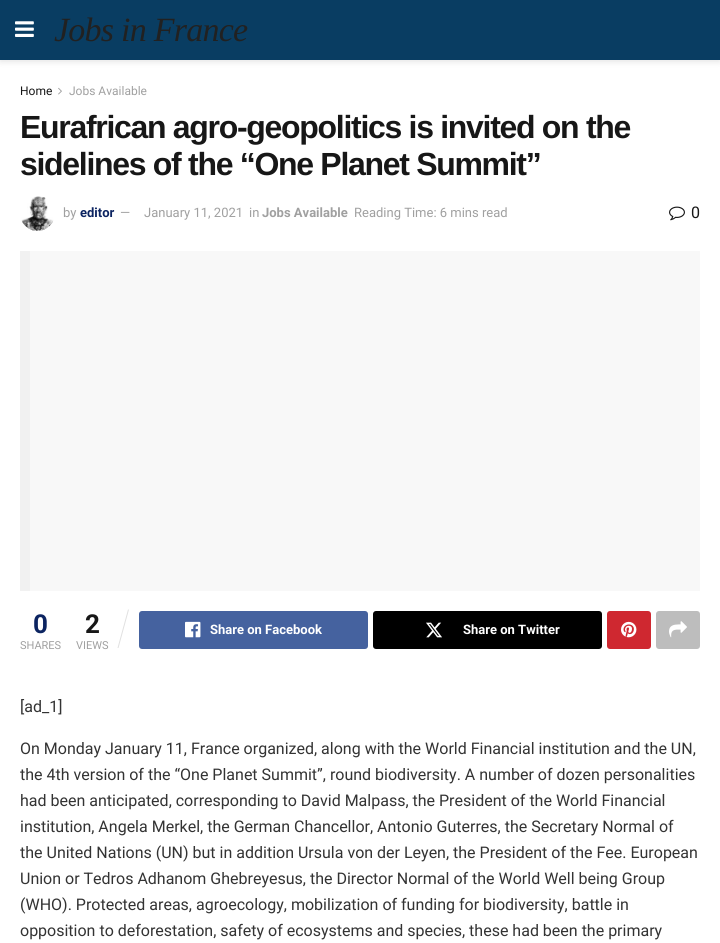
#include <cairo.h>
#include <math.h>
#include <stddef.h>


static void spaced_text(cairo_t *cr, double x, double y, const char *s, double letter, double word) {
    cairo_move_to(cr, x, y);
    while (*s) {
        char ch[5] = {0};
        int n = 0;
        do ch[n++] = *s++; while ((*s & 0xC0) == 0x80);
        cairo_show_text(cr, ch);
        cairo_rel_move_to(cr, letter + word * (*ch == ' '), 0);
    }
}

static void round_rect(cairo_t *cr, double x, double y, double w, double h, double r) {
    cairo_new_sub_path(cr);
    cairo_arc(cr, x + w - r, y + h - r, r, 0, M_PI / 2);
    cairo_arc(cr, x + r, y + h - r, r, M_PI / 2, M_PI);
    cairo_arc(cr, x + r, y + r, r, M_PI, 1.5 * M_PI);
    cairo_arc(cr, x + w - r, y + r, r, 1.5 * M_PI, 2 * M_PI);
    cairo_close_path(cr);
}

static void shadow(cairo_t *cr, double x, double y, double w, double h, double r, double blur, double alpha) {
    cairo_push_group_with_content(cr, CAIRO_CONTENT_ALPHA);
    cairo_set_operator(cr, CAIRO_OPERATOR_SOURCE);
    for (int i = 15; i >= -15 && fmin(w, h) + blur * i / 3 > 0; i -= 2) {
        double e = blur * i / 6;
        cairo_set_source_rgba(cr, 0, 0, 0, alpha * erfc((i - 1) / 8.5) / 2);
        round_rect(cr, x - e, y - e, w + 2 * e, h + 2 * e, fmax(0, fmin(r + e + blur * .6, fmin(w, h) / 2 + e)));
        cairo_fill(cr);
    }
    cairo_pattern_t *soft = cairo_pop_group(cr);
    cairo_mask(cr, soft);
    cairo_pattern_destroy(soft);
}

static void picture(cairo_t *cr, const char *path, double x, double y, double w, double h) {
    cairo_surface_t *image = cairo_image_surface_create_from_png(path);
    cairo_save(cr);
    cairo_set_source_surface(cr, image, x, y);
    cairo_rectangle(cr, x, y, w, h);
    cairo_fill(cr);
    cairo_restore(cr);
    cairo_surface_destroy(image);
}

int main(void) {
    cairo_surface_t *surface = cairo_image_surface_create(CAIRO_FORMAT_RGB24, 720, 943);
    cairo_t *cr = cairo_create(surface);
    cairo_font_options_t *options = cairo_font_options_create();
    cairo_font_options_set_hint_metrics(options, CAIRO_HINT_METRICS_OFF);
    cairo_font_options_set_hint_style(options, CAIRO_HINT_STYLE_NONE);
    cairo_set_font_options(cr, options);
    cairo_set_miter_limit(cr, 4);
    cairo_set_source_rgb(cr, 1, 1, 1);
    cairo_paint(cr);
    cairo_set_source_rgb(cr, 0, 0, 0);
    shadow(cr, 0, 2, 720, 60, 0, 3, 0.1);
    cairo_set_source_rgb(cr, 0.039, 0.239, 0.384);
    cairo_rectangle(cr, 0, 0, 720, 60);
    cairo_fill(cr);
    picture(cr, "img1.png", 15, 21, 19, 16);
    cairo_select_font_face(cr, "Liberation Serif", CAIRO_FONT_SLANT_ITALIC, CAIRO_FONT_WEIGHT_NORMAL);
    cairo_set_font_size(cr, 34);
    cairo_set_source_rgb(cr, 0.129, 0.129, 0.129);
    spaced_text(cr, 54, 41, "Jobs in France", -0.75, 0);
    cairo_select_font_face(cr, "Roboto", CAIRO_FONT_SLANT_NORMAL, CAIRO_FONT_WEIGHT_NORMAL);
    cairo_set_font_size(cr, 12);
    cairo_set_source_rgb(cr, 0.09, 0.09, 0.09);
    cairo_move_to(cr, 20, 95);
    cairo_show_text(cr, "Home");
    picture(cr, "img2.png", 58, 87, 4, 8);
    cairo_set_source_rgb(cr, 0.627, 0.627, 0.627);
    cairo_move_to(cr, 69, 95);
    cairo_show_text(cr, "Jobs Available");
    cairo_select_font_face(cr, "Liberation Sans", CAIRO_FONT_SLANT_NORMAL, CAIRO_FONT_WEIGHT_BOLD);
    cairo_set_font_size(cr, 32);
    cairo_set_source_rgb(cr, 0.09, 0.09, 0.09);
    spaced_text(cr, 20, 138, "Eurafrican agro-geopolitics is invited on the", -1.3, 0);
    spaced_text(cr, 20, 175, "sidelines of the “One Planet Summit”", -1.3, 0);
    picture(cr, "img3.png", 21, 196, 33, 35);
    cairo_select_font_face(cr, "Roboto", CAIRO_FONT_SLANT_NORMAL, CAIRO_FONT_WEIGHT_NORMAL);
    cairo_set_font_size(cr, 13);
    cairo_set_source_rgb(cr, 0.627, 0.627, 0.627);
    cairo_move_to(cr, 63, 217);
    cairo_show_text(cr, "by");
    cairo_select_font_face(cr, "Roboto", CAIRO_FONT_SLANT_NORMAL, CAIRO_FONT_WEIGHT_BOLD);
    cairo_set_source_rgb(cr, 0.047, 0.141, 0.38);
    cairo_move_to(cr, 80, 217);
    cairo_show_text(cr, "editor");
    cairo_select_font_face(cr, "Roboto", CAIRO_FONT_SLANT_NORMAL, CAIRO_FONT_WEIGHT_NORMAL);
    cairo_set_source_rgb(cr, 0.627, 0.627, 0.627);
    cairo_move_to(cr, 120, 217);
    cairo_show_text(cr, "—");
    cairo_move_to(cr, 144, 217);
    cairo_show_text(cr, "January 11, 2021");
    cairo_move_to(cr, 249, 217);
    cairo_show_text(cr, "in");
    cairo_select_font_face(cr, "Roboto", CAIRO_FONT_SLANT_NORMAL, CAIRO_FONT_WEIGHT_BOLD);
    cairo_move_to(cr, 262, 217);
    cairo_show_text(cr, "Jobs Available");
    cairo_select_font_face(cr, "Roboto", CAIRO_FONT_SLANT_NORMAL, CAIRO_FONT_WEIGHT_NORMAL);
    cairo_move_to(cr, 354, 217);
    cairo_show_text(cr, "Reading Time: 6 mins read");
    picture(cr, "img4.png", 669, 206, 16, 15);
    cairo_set_font_size(cr, 16);
    cairo_set_source_rgb(cr, 0.09, 0.09, 0.09);
    cairo_move_to(cr, 691, 218);
    cairo_show_text(cr, "0");
    cairo_set_source_rgb(cr, 0.969, 0.969, 0.969);
    cairo_rectangle(cr, 30, 251, 670, 340);
    cairo_fill(cr);
    cairo_set_source_rgb(cr, 0.945, 0.945, 0.945);
    cairo_rectangle(cr, 20, 251, 10, 340);
    cairo_fill(cr);
    cairo_select_font_face(cr, "Roboto", CAIRO_FONT_SLANT_NORMAL, CAIRO_FONT_WEIGHT_BOLD);
    cairo_set_font_size(cr, 26);
    cairo_set_source_rgb(cr, 0.047, 0.141, 0.38);
    cairo_move_to(cr, 33, 633);
    cairo_show_text(cr, "0");
    cairo_select_font_face(cr, "Roboto", CAIRO_FONT_SLANT_NORMAL, CAIRO_FONT_WEIGHT_NORMAL);
    cairo_set_font_size(cr, 11);
    cairo_set_source_rgb(cr, 0.627, 0.627, 0.627);
    cairo_move_to(cr, 20, 649);
    cairo_show_text(cr, "SHARES");
    cairo_select_font_face(cr, "Roboto", CAIRO_FONT_SLANT_NORMAL, CAIRO_FONT_WEIGHT_BOLD);
    cairo_set_font_size(cr, 26);
    cairo_set_source_rgb(cr, 0.09, 0.09, 0.09);
    cairo_move_to(cr, 85, 633);
    cairo_show_text(cr, "2");
    cairo_set_source_rgb(cr, 0.878, 0.878, 0.878);
    cairo_new_path(cr);
    cairo_move_to(cr, 128, 609.5);
    cairo_line_to(cr, 129, 609.5);
    cairo_line_to(cr, 118.5, 648);
    cairo_line_to(cr, 117.5, 648);
    cairo_close_path(cr);
    cairo_fill(cr);
    cairo_select_font_face(cr, "Roboto", CAIRO_FONT_SLANT_NORMAL, CAIRO_FONT_WEIGHT_NORMAL);
    cairo_set_font_size(cr, 11);
    cairo_set_source_rgb(cr, 0.627, 0.627, 0.627);
    cairo_move_to(cr, 76, 649);
    cairo_show_text(cr, "VIEWS");
    cairo_set_source_rgb(cr, 0.271, 0.384, 0.624);
    round_rect(cr, 139, 611, 229, 38, 3);
    cairo_fill(cr);
    picture(cr, "img5.png", 185, 621, 16, 17);
    cairo_select_font_face(cr, "Roboto", CAIRO_FONT_SLANT_NORMAL, CAIRO_FONT_WEIGHT_BOLD);
    cairo_set_font_size(cr, 13);
    cairo_set_source_rgb(cr, 1, 1, 1);
    cairo_move_to(cr, 210, 634);
    cairo_show_text(cr, "Share on Facebook");
    cairo_set_source_rgb(cr, 0, 0, 0);
    round_rect(cr, 373, 611, 229, 38, 3);
    cairo_fill(cr);
    picture(cr, "img6.png", 426, 622, 16, 16);
    cairo_set_source_rgb(cr, 1, 1, 1);
    cairo_move_to(cr, 463, 634);
    cairo_show_text(cr, "Share on Twitter");
    cairo_set_source_rgb(cr, 0.812, 0.157, 0.188);
    round_rect(cr, 607, 611, 44, 38, 3);
    cairo_fill(cr);
    picture(cr, "img7.png", 621, 621, 16, 17);
    cairo_set_source_rgb(cr, 0.741, 0.741, 0.741);
    round_rect(cr, 656, 611, 44, 38, 3);
    cairo_fill(cr);
    picture(cr, "img8.png", 669, 621, 18, 17);
    cairo_select_font_face(cr, "Roboto", CAIRO_FONT_SLANT_NORMAL, CAIRO_FONT_WEIGHT_NORMAL);
    cairo_set_font_size(cr, 16);
    cairo_set_source_rgb(cr, 0.2, 0.2, 0.2);
    cairo_move_to(cr, 20, 712);
    cairo_show_text(cr, "[ad_1]");
    cairo_move_to(cr, 20, 754);
    cairo_show_text(cr, "On Monday January 11, France organized, along with the World Financial institution and the UN,");
    cairo_move_to(cr, 20, 780);
    cairo_show_text(cr, "the 4th version of the “One Planet Summit”, round biodiversity. A number of dozen personalities");
    cairo_move_to(cr, 20, 806);
    cairo_show_text(cr, "had been anticipated, corresponding to David Malpass, the President of the World Financial");
    cairo_move_to(cr, 20, 832);
    cairo_show_text(cr, "institution, Angela Merkel, the German Chancellor, Antonio Guterres, the Secretary Normal of");
    cairo_move_to(cr, 20, 858);
    cairo_show_text(cr, "the United Nations (UN) but in addition Ursula von der Leyen, the President of the Fee. European");
    cairo_move_to(cr, 20, 884);
    cairo_show_text(cr, "Union or Tedros Adhanom Ghebreyesus, the Director Normal of the World Well being Group");
    cairo_move_to(cr, 20, 910);
    cairo_show_text(cr, "(WHO). Protected areas, agroecology, mobilization of funding for biodiversity, battle in");
    cairo_move_to(cr, 20, 936);
    cairo_show_text(cr, "opposition to deforestation, safety of ecosystems and species, these had been the primary");
    cairo_surface_write_to_png(surface, "page.png");
    cairo_font_options_destroy(options);
    cairo_destroy(cr);
    cairo_surface_destroy(surface);
    return 0;
}
